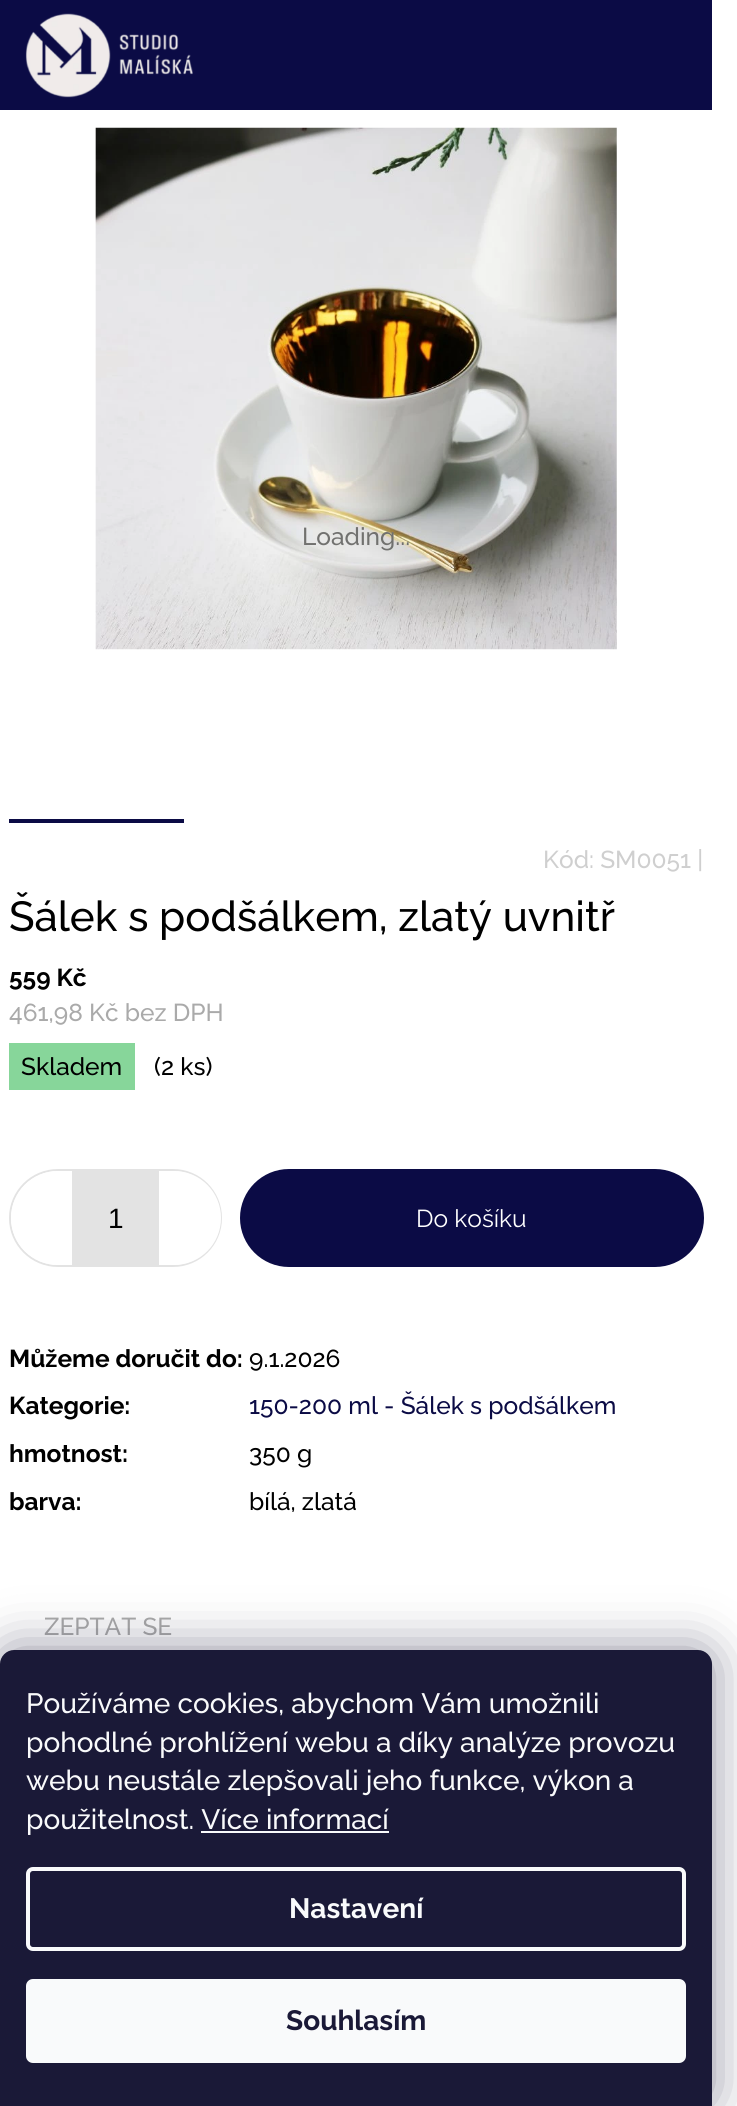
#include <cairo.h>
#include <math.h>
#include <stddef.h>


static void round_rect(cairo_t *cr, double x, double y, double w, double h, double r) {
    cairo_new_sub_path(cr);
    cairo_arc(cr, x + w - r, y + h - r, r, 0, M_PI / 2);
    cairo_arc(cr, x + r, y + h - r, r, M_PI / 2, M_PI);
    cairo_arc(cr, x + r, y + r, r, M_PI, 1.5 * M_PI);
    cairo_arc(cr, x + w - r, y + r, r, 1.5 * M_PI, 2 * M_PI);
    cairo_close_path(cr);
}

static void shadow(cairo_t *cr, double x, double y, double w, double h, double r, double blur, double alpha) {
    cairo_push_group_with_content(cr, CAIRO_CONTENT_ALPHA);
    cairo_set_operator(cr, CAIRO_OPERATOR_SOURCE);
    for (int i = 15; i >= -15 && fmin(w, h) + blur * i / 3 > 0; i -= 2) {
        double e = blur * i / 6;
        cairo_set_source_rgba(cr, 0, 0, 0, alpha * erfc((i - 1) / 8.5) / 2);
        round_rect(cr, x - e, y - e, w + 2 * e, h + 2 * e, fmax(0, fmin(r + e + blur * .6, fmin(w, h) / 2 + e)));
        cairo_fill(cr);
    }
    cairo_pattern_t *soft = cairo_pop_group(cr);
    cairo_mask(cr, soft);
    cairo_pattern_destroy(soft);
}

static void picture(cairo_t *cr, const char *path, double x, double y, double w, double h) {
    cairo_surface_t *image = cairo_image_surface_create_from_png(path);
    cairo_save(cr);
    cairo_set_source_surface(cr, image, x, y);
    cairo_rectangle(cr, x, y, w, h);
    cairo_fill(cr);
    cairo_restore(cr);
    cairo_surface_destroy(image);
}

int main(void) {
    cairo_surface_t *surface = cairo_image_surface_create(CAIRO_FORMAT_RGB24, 737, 2106);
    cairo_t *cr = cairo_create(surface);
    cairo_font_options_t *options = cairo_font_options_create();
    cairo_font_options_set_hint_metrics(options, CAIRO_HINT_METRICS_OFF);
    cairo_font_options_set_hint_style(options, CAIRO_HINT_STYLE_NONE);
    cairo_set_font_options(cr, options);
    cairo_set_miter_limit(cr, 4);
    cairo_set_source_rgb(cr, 1, 1, 1);
    cairo_paint(cr);
    cairo_set_source_rgb(cr, 0.043, 0.043, 0.271);
    cairo_rectangle(cr, 0, 0, 712, 110);
    cairo_fill(cr);
    picture(cr, "img1.png", 25, 13, 168, 85);
    picture(cr, "img2.png", 95, 127, 522, 523);
    cairo_select_font_face(cr, "Raleway Medium", CAIRO_FONT_SLANT_NORMAL, CAIRO_FONT_WEIGHT_NORMAL);
    cairo_set_font_size(cr, 24.5);
    cairo_set_source_rgb(cr, 0.443, 0.443, 0.435);
    cairo_move_to(cr, 302, 545);
    cairo_show_text(cr, "Loading...");
    cairo_set_source_rgb(cr, 0.043, 0.043, 0.271);
    cairo_rectangle(cr, 9, 819, 175, 4);
    cairo_fill(cr);
    cairo_set_source_rgb(cr, 0.812, 0.812, 0.812);
    cairo_move_to(cr, 543, 868);
    cairo_show_text(cr, "Kód: SM0051 |");
    cairo_set_font_size(cr, 42);
    cairo_set_source_rgb(cr, 0, 0, 0);
    cairo_move_to(cr, 9, 931);
    cairo_show_text(cr, "Šálek s podšálkem, zlatý uvnitř");
    cairo_select_font_face(cr, "Raleway", CAIRO_FONT_SLANT_NORMAL, CAIRO_FONT_WEIGHT_BOLD);
    cairo_set_font_size(cr, 24.5);
    cairo_move_to(cr, 9, 986);
    cairo_show_text(cr, "559 Kč");
    cairo_select_font_face(cr, "Raleway Medium", CAIRO_FONT_SLANT_NORMAL, CAIRO_FONT_WEIGHT_NORMAL);
    cairo_set_source_rgb(cr, 0.667, 0.667, 0.667);
    cairo_move_to(cr, 9, 1021);
    cairo_show_text(cr, "461,98 Kč bez DPH");
    cairo_set_source_rgb(cr, 0.529, 0.839, 0.604);
    cairo_rectangle(cr, 9, 1043, 126, 47);
    cairo_fill(cr);
    cairo_set_source_rgb(cr, 0, 0, 0);
    cairo_move_to(cr, 21, 1075);
    cairo_show_text(cr, "Skladem");
    cairo_move_to(cr, 154, 1075);
    cairo_show_text(cr, "(2 ks)");
    round_rect(cr, 10, 1170, 211, 96, 48);
    cairo_set_source_rgb(cr, 0.89, 0.89, 0.89);
    cairo_stroke(cr);
    cairo_set_source_rgb(cr, 1, 1, 1);
    cairo_new_path(cr);
    cairo_move_to(cr, 58, 1171);
    cairo_line_to(cr, 72, 1171);
    cairo_line_to(cr, 72, 1265);
    cairo_line_to(cr, 58, 1265);
    cairo_curve_to(cr, 32, 1265, 11, 1244, 11, 1218);
    cairo_curve_to(cr, 11, 1192, 32, 1171, 58, 1171);
    cairo_close_path(cr);
    cairo_fill(cr);
    cairo_set_source_rgb(cr, 0.89, 0.89, 0.89);
    cairo_rectangle(cr, 72, 1171, 87, 94);
    cairo_fill(cr);
    cairo_select_font_face(cr, "Liberation Sans", CAIRO_FONT_SLANT_NORMAL, CAIRO_FONT_WEIGHT_NORMAL);
    cairo_set_font_size(cr, 28);
    cairo_set_source_rgb(cr, 0, 0, 0);
    cairo_move_to(cr, 108, 1228);
    cairo_show_text(cr, "1");
    cairo_set_source_rgb(cr, 1, 1, 1);
    cairo_new_path(cr);
    cairo_move_to(cr, 159, 1171);
    cairo_line_to(cr, 174, 1171);
    cairo_curve_to(cr, 200, 1171, 221, 1192, 221, 1218);
    cairo_curve_to(cr, 221, 1244, 200, 1265, 174, 1265);
    cairo_line_to(cr, 159, 1265);
    cairo_close_path(cr);
    cairo_fill(cr);
    cairo_set_source_rgb(cr, 0.043, 0.043, 0.271);
    round_rect(cr, 241, 1170, 462, 96, 48);
    cairo_fill_preserve(cr);
    cairo_stroke(cr);
    cairo_select_font_face(cr, "Raleway", CAIRO_FONT_SLANT_NORMAL, CAIRO_FONT_WEIGHT_NORMAL);
    cairo_set_font_size(cr, 24.5);
    cairo_set_source_rgb(cr, 1, 1, 1);
    cairo_move_to(cr, 416, 1227);
    cairo_show_text(cr, "Do košíku");
    cairo_select_font_face(cr, "Raleway", CAIRO_FONT_SLANT_NORMAL, CAIRO_FONT_WEIGHT_BOLD);
    cairo_set_source_rgb(cr, 0, 0, 0);
    cairo_move_to(cr, 9, 1367);
    cairo_show_text(cr, "Můžeme doručit do:");
    cairo_select_font_face(cr, "Raleway Medium", CAIRO_FONT_SLANT_NORMAL, CAIRO_FONT_WEIGHT_NORMAL);
    cairo_move_to(cr, 249, 1367);
    cairo_show_text(cr, "9.1.2026");
    cairo_select_font_face(cr, "Raleway", CAIRO_FONT_SLANT_NORMAL, CAIRO_FONT_WEIGHT_BOLD);
    cairo_move_to(cr, 9, 1414);
    cairo_show_text(cr, "Kategorie:");
    cairo_select_font_face(cr, "Raleway Medium", CAIRO_FONT_SLANT_NORMAL, CAIRO_FONT_WEIGHT_NORMAL);
    cairo_set_source_rgb(cr, 0.043, 0.043, 0.271);
    cairo_move_to(cr, 249, 1414);
    cairo_show_text(cr, "150-200 ml - Šálek s podšálkem");
    cairo_select_font_face(cr, "Raleway", CAIRO_FONT_SLANT_NORMAL, CAIRO_FONT_WEIGHT_BOLD);
    cairo_set_source_rgb(cr, 0, 0, 0);
    cairo_move_to(cr, 9, 1462);
    cairo_show_text(cr, "hmotnost:");
    cairo_select_font_face(cr, "Raleway Medium", CAIRO_FONT_SLANT_NORMAL, CAIRO_FONT_WEIGHT_NORMAL);
    cairo_move_to(cr, 249, 1462);
    cairo_show_text(cr, "350 g");
    cairo_select_font_face(cr, "Raleway", CAIRO_FONT_SLANT_NORMAL, CAIRO_FONT_WEIGHT_BOLD);
    cairo_move_to(cr, 9, 1510);
    cairo_show_text(cr, "barva:");
    cairo_select_font_face(cr, "Raleway Medium", CAIRO_FONT_SLANT_NORMAL, CAIRO_FONT_WEIGHT_NORMAL);
    cairo_move_to(cr, 249, 1510);
    cairo_show_text(cr, "bílá, zlatá");
    cairo_set_source_rgb(cr, 0.667, 0.667, 0.667);
    cairo_move_to(cr, 44, 1635);
    cairo_show_text(cr, "ZEPTAT SE");
    cairo_set_source_rgb(cr, 0.106, 0.098, 0.224);
    shadow(cr, 0, 1650, 712, 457, 14, 26, 0.5);
    cairo_set_source_rgb(cr, 0.102, 0.098, 0.216);
    cairo_new_path(cr);
    cairo_move_to(cr, 14, 1650);
    cairo_line_to(cr, 698, 1650);
    cairo_curve_to(cr, 705.5, 1650, 712, 1656.5, 712, 1664);
    cairo_line_to(cr, 712, 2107);
    cairo_line_to(cr, 0, 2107);
    cairo_line_to(cr, 0, 1664);
    cairo_curve_to(cr, 0, 1656.5, 6.5, 1650, 14, 1650);
    cairo_close_path(cr);
    cairo_fill(cr);
    cairo_set_font_size(cr, 28);
    cairo_set_source_rgb(cr, 0.973, 0.98, 0.984);
    cairo_move_to(cr, 26, 1713);
    cairo_show_text(cr, "Používáme cookies, abychom Vám umožnili");
    cairo_move_to(cr, 26, 1752);
    cairo_show_text(cr, "pohodlné prohlížení webu a díky analýze provozu");
    cairo_move_to(cr, 26, 1790);
    cairo_show_text(cr, "webu neustále zlepšovali jeho funkce, výkon a");
    cairo_move_to(cr, 26, 1829);
    cairo_show_text(cr, "použitelnost. Více informací");
    cairo_rectangle(cr, 201, 1831, 188, 2);
    cairo_fill(cr);
    round_rect(cr, 28, 1869, 656, 80, 5);
    cairo_set_line_width(cr, 4);
    cairo_stroke(cr);
    cairo_select_font_face(cr, "Raleway", CAIRO_FONT_SLANT_NORMAL, CAIRO_FONT_WEIGHT_BOLD);
    cairo_move_to(cr, 289, 1918);
    cairo_show_text(cr, "Nastavení");
    round_rect(cr, 26, 1979, 660, 84, 7);
    cairo_fill(cr);
    cairo_set_source_rgb(cr, 0.102, 0.098, 0.216);
    cairo_move_to(cr, 286, 2030);
    cairo_show_text(cr, "Souhlasím");
    cairo_surface_write_to_png(surface, "page.png");
    cairo_font_options_destroy(options);
    cairo_destroy(cr);
    cairo_surface_destroy(surface);
    return 0;
}
